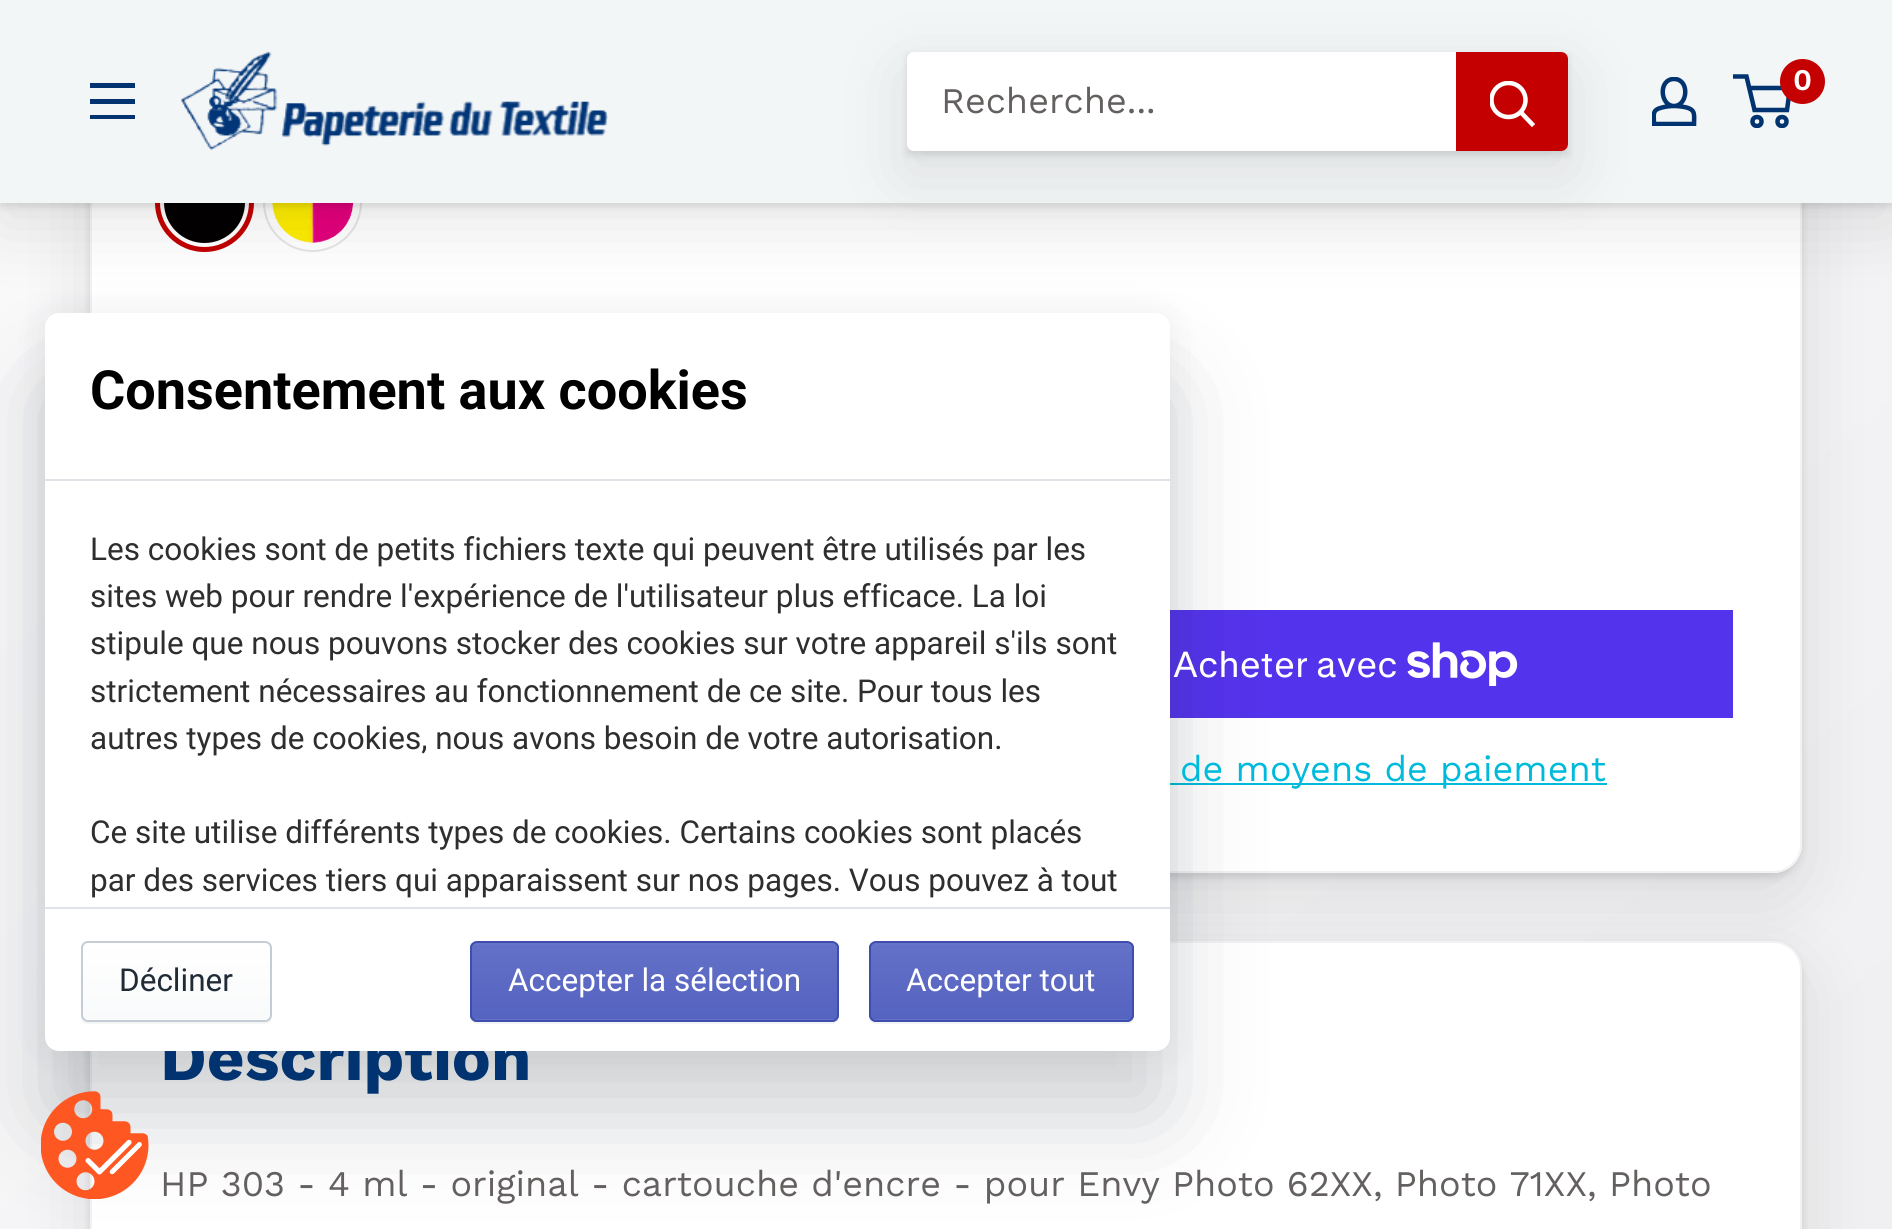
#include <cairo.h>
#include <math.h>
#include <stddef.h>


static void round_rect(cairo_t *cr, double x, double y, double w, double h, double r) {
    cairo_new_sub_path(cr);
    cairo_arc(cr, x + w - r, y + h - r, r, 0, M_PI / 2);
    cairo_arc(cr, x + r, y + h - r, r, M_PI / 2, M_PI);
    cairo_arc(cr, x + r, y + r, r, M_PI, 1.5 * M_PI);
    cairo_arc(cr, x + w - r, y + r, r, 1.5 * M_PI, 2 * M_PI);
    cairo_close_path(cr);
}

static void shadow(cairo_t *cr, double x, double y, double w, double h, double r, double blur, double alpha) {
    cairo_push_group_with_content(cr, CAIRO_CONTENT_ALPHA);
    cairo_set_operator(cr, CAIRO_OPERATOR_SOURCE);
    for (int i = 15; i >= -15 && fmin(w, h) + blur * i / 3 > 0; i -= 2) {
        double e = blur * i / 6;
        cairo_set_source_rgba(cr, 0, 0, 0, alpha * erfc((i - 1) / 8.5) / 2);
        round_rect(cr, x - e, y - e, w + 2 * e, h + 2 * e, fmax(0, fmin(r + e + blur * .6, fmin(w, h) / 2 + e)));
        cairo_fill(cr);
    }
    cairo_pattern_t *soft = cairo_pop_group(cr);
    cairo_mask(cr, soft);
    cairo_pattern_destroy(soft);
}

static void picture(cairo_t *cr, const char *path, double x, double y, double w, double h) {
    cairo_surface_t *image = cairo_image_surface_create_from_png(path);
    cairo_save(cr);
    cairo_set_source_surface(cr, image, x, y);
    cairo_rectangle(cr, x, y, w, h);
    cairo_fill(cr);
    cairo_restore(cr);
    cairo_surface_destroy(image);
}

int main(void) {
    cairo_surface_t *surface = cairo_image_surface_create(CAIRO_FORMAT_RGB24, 1892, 1229);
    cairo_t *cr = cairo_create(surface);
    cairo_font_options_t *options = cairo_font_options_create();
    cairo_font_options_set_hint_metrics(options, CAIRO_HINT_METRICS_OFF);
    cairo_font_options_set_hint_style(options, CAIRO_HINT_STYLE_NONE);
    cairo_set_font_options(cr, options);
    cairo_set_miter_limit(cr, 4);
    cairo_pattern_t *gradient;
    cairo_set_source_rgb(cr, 1, 1, 1);
    cairo_paint(cr);
    gradient = cairo_pattern_create_linear(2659, 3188, -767, -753);
    cairo_pattern_add_color_stop_rgba(gradient, 0, 0.902, 0.902, 0.918, 1);
    cairo_pattern_add_color_stop_rgba(gradient, 1, 1, 1, 1, 1);
    cairo_set_source(cr, gradient);
    cairo_pattern_destroy(gradient);
    cairo_rectangle(cr, 0, 203, 1892, 1026);
    cairo_fill(cr);
    cairo_set_source_rgb(cr, 0, 0, 0);
    shadow(cr, 90, -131, 1712, 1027, 29, 34, 0.1);
    shadow(cr, 90, -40, 1712, 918, 29, 3.5, 0.1);
    cairo_set_source_rgb(cr, 1, 1, 1);
    round_rect(cr, 90, -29, 1712, 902, 29);
    cairo_fill(cr);
    cairo_set_source_rgb(cr, 0.949, 0.949, 0.949);
    cairo_set_fill_rule(cr, CAIRO_FILL_RULE_EVEN_ODD);
    cairo_new_path(cr);
    cairo_move_to(cr, 119, -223);
    cairo_line_to(cr, 1773, -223);
    cairo_curve_to(cr, 1789, -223, 1802, -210, 1802, -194);
    cairo_line_to(cr, 1802, 844);
    cairo_curve_to(cr, 1802, 860, 1789, 873, 1773, 873);
    cairo_line_to(cr, 119, 873);
    cairo_curve_to(cr, 103, 873, 90, 860, 90, 844);
    cairo_line_to(cr, 90, -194);
    cairo_curve_to(cr, 90, -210, 103, -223, 119, -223);
    cairo_close_path(cr);
    cairo_move_to(cr, 119, -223);
    cairo_line_to(cr, 1773, -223);
    cairo_curve_to(cr, 1788, -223, 1800, -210, 1800, -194);
    cairo_line_to(cr, 1800, 844);
    cairo_curve_to(cr, 1800, 859, 1788, 871, 1773, 871);
    cairo_line_to(cr, 119, 871);
    cairo_curve_to(cr, 104, 871, 92, 859, 92, 844);
    cairo_line_to(cr, 92, -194);
    cairo_curve_to(cr, 92, -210, 104, -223, 119, -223);
    cairo_close_path(cr);
    cairo_fill(cr);
    cairo_arc(cr, 204.5, 202.5, 48.5, 0, 2 * M_PI);
    cairo_set_source_rgb(cr, 0.898, 0.898, 0.898);
    cairo_stroke(cr);
    cairo_set_source_rgb(cr, 0.012, 0, 0.004);
    cairo_arc(cr, 204.5, 202.5, 40.5, 0, 2 * M_PI);
    cairo_fill(cr);
    cairo_arc(cr, 204.5, 202.5, 47, 0, 2 * M_PI);
    cairo_set_source_rgb(cr, 0.769, 0, 0);
    cairo_set_line_width(cr, 5);
    cairo_stroke(cr);
    cairo_arc(cr, 312.5, 202.5, 48.5, 0, 2 * M_PI);
    cairo_set_source_rgb(cr, 0.898, 0.898, 0.898);
    cairo_set_line_width(cr, 2);
    cairo_stroke(cr);
    picture(cr, "img3.png", 272, 203, 82, 40);
    cairo_set_source_rgb(cr, 0, 0, 0);
    shadow(cr, 0, 23, 1892, 202, 0, 34, 0.1);
    shadow(cr, 0, 5, 1892, 202, 0, 3.5, 0.1);
    cairo_set_source_rgb(cr, 0.953, 0.961, 0.965);
    cairo_rectangle(cr, 0, 0, 1892, 203);
    cairo_fill(cr);
    picture(cr, "img1.png", 181, 51, 427, 100);
    cairo_set_source_rgb(cr, 0, 0, 0);
    shadow(cr, 907, 74, 661, 99, 0, 34, 0.1);
    cairo_save(cr);
    cairo_set_fill_rule(cr, CAIRO_FILL_RULE_WINDING);
    cairo_rectangle(cr, 1652, 77, 45, 49);
    cairo_clip(cr);
    cairo_new_path(cr);
    cairo_move_to(cr, 1674, 106);
    cairo_curve_to(cr, 1678, 106, 1682.5, 106.5, 1686.5, 107.5);
    cairo_curve_to(cr, 1696, 110, 1694, 115.5, 1694, 124);
    cairo_line_to(cr, 1654, 124);
    cairo_curve_to(cr, 1654, 114.5, 1651.5, 110, 1662, 107.5);
    cairo_curve_to(cr, 1666, 106.5, 1670, 106, 1674, 106);
    cairo_close_path(cr);
    cairo_move_to(cr, 1674, 106);
    cairo_curve_to(cr, 1660, 106, 1658, 79, 1674, 79);
    cairo_curve_to(cr, 1690, 79, 1688, 106, 1674, 106);
    cairo_close_path(cr);
    cairo_set_source_rgb(cr, 0, 0.2, 0.439);
    cairo_set_line_width(cr, 4.5);
    cairo_stroke(cr);
    cairo_restore(cr);
    cairo_save(cr);
    cairo_set_fill_rule(cr, CAIRO_FILL_RULE_WINDING);
    cairo_rectangle(cr, 1733, 74, 60, 54);
    cairo_clip(cr);
    cairo_arc(cr, 1757, 121.5, 4.5, 0, 2 * M_PI);
    cairo_set_source_rgb(cr, 0, 0.2, 0.439);
    cairo_set_line_width(cr, 4.5);
    cairo_stroke(cr);
    cairo_arc(cr, 1782, 121.5, 4.5, 0, 2 * M_PI);
    cairo_stroke(cr);
    cairo_new_path(cr);
    cairo_move_to(cr, 1749, 88);
    cairo_line_to(cr, 1790, 88);
    cairo_line_to(cr, 1787, 110);
    cairo_line_to(cr, 1754.5, 110);
    cairo_line_to(cr, 1746.5, 76.5);
    cairo_line_to(cr, 1732.5, 76.5);
    cairo_stroke(cr);
    cairo_restore(cr);
    cairo_set_source_rgb(cr, 0.769, 0, 0);
    cairo_arc(cr, 1802.5, 81.5, 22.5, 0, 2 * M_PI);
    cairo_fill(cr);
    cairo_select_font_face(cr, "Work Sans SemiBold", CAIRO_FONT_SLANT_NORMAL, CAIRO_FONT_WEIGHT_NORMAL);
    cairo_set_font_size(cr, 30);
    cairo_set_source_rgb(cr, 1, 1, 1);
    cairo_move_to(cr, 1793, 90);
    cairo_show_text(cr, "0");
    cairo_set_source_rgb(cr, 0, 0.2, 0.439);
    cairo_new_path(cr);
    cairo_move_to(cr, 90, 115);
    cairo_line_to(cr, 135, 115);
    cairo_line_to(cr, 135, 119);
    cairo_line_to(cr, 90, 119);
    cairo_close_path(cr);
    cairo_move_to(cr, 90, 83);
    cairo_line_to(cr, 135, 83);
    cairo_line_to(cr, 135, 88);
    cairo_line_to(cr, 90, 88);
    cairo_close_path(cr);
    cairo_move_to(cr, 90, 99);
    cairo_line_to(cr, 135, 99);
    cairo_line_to(cr, 135, 104);
    cairo_line_to(cr, 90, 104);
    cairo_close_path(cr);
    cairo_fill(cr);
    cairo_set_source_rgb(cr, 0, 0, 0);
    shadow(cr, 907, 56, 661, 99, 0, 3.5, 0.1);
    cairo_set_source_rgb(cr, 1, 1, 1);
    round_rect(cr, 907, 52, 661, 99, 7);
    cairo_fill(cr);
    cairo_select_font_face(cr, "Work Sans", CAIRO_FONT_SLANT_NORMAL, CAIRO_FONT_WEIGHT_NORMAL);
    cairo_set_font_size(cr, 36);
    cairo_set_source_rgb(cr, 0.392, 0.376, 0.376);
    cairo_move_to(cr, 941, 113);
    cairo_show_text(cr, "Recherche...");
    cairo_set_source_rgb(cr, 0.769, 0, 0);
    cairo_new_path(cr);
    cairo_move_to(cr, 1456, 52);
    cairo_line_to(cr, 1561, 52);
    cairo_curve_to(cr, 1565, 52, 1568, 55, 1568, 59);
    cairo_line_to(cr, 1568, 144);
    cairo_curve_to(cr, 1568, 148, 1565, 151, 1561, 151);
    cairo_line_to(cr, 1456, 151);
    cairo_close_path(cr);
    cairo_fill(cr);
    cairo_new_path(cr);
    cairo_move_to(cr, 1532, 124);
    cairo_line_to(cr, 1521, 112.5);
    cairo_set_source_rgb(cr, 1, 1, 1);
    cairo_set_line_width(cr, 4.5);
    cairo_set_line_cap(cr, CAIRO_LINE_CAP_SQUARE);
    cairo_stroke(cr);
    cairo_save(cr);
    cairo_set_fill_rule(cr, CAIRO_FILL_RULE_WINDING);
    cairo_rectangle(cr, 1490, 81, 47, 47);
    cairo_clip(cr);
    cairo_arc(cr, 1508.5, 100, 17, 0, 2 * M_PI);
    cairo_set_line_cap(cr, CAIRO_LINE_CAP_BUTT);
    cairo_stroke(cr);
    cairo_restore(cr);
    cairo_set_source_rgb(cr, 0.329, 0.2, 0.922);
    cairo_rectangle(cr, 1170, 610, 563, 108);
    cairo_fill(cr);
    cairo_set_source_rgb(cr, 0, 0.729, 0.859);
    cairo_rectangle(cr, 1170, 783, 437, 2);
    cairo_fill(cr);
    cairo_set_source_rgb(cr, 0, 0, 0);
    shadow(cr, 90, 963, 1712, 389, 29, 34, 0.1);
    shadow(cr, 90, 945, 1712, 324, 29, 3.5, 0.1);
    cairo_set_source_rgb(cr, 1, 1, 1);
    round_rect(cr, 91, 942, 1710, 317, 28);
    cairo_fill_preserve(cr);
    cairo_set_source_rgb(cr, 0.949, 0.949, 0.949);
    cairo_set_line_width(cr, 2);
    cairo_set_line_cap(cr, CAIRO_LINE_CAP_BUTT);
    cairo_stroke(cr);
    cairo_set_source_rgb(cr, 0.125, 0.165, 0.212);
    shadow(cr, 45, 317, 1125, 738, 14, 18, 0.08);
    cairo_set_source_rgb(cr, 0.125, 0.165, 0.208);
    shadow(cr, 45, 383, 1125, 738, 14, 46, 0.2);
    cairo_select_font_face(cr, "Work Sans", CAIRO_FONT_SLANT_NORMAL, CAIRO_FONT_WEIGHT_BOLD);
    cairo_set_font_size(cr, 65.25);
    cairo_set_source_rgb(cr, 0, 0.2, 0.439);
    cairo_move_to(cr, 160, 1080);
    cairo_show_text(cr, "Description");
    cairo_set_source_rgb(cr, 1, 1, 1);
    round_rect(cr, 45, 313, 1125, 738, 14);
    cairo_fill(cr);
    cairo_set_source_rgb(cr, 0.875, 0.89, 0.91);
    cairo_rectangle(cr, 45, 479, 1125, 2);
    cairo_fill(cr);
    cairo_select_font_face(cr, "Roboto", CAIRO_FONT_SLANT_NORMAL, CAIRO_FONT_WEIGHT_BOLD);
    cairo_set_font_size(cr, 54);
    cairo_set_source_rgb(cr, 0, 0, 0);
    cairo_move_to(cr, 90, 409);
    cairo_show_text(cr, "Consentement aux cookies");
    cairo_select_font_face(cr, "Roboto", CAIRO_FONT_SLANT_NORMAL, CAIRO_FONT_WEIGHT_NORMAL);
    cairo_set_font_size(cr, 31.5);
    cairo_set_source_rgb(cr, 0.18, 0.18, 0.18);
    cairo_move_to(cr, 90, 560);
    cairo_show_text(cr, "Les cookies sont de petits fichiers texte qui peuvent être utilisés par les");
    cairo_move_to(cr, 90, 607);
    cairo_show_text(cr, "sites web pour rendre l'expérience de l'utilisateur plus efficace. La loi");
    cairo_move_to(cr, 90, 654);
    cairo_show_text(cr, "stipule que nous pouvons stocker des cookies sur votre appareil s'ils sont");
    cairo_move_to(cr, 90, 702);
    cairo_show_text(cr, "strictement nécessaires au fonctionnement de ce site. Pour tous les");
    cairo_move_to(cr, 90, 749);
    cairo_show_text(cr, "autres types de cookies, nous avons besoin de votre autorisation.");
    cairo_move_to(cr, 90, 843);
    cairo_show_text(cr, "Ce site utilise différents types de cookies. Certains cookies sont placés");
    cairo_move_to(cr, 90, 891);
    cairo_show_text(cr, "par des services tiers qui apparaissent sur nos pages. Vous pouvez à tout");
    cairo_set_source_rgb(cr, 0.875, 0.89, 0.91);
    cairo_rectangle(cr, 45, 907, 1125, 2);
    cairo_fill(cr);
    cairo_set_source_rgb(cr, 0.953, 0.957, 0.957);
    cairo_set_fill_rule(cr, CAIRO_FILL_RULE_WINDING);
    cairo_new_path(cr);
    cairo_move_to(cr, 81, 1015);
    cairo_line_to(cr, 81, 1017);
    cairo_curve_to(cr, 81, 1021, 84, 1024, 88, 1024);
    cairo_line_to(cr, 265, 1024);
    cairo_curve_to(cr, 269, 1024, 272, 1021, 272, 1017);
    cairo_curve_to(cr, 271, 1019, 269, 1022, 266, 1022);
    cairo_line_to(cr, 88, 1022);
    cairo_curve_to(cr, 84, 1022, 81, 1018, 81, 1015);
    cairo_close_path(cr);
    cairo_fill(cr);
    cairo_save(cr);
    round_rect(cr, 81, 941, 191, 81, 7);
    cairo_clip(cr);
    gradient = cairo_pattern_create_linear(177, 943, 177, 1019);
    cairo_pattern_add_color_stop_rgba(gradient, 0, 1, 1, 1, 1);
    cairo_pattern_add_color_stop_rgba(gradient, 1, 0.976, 0.98, 0.984, 1);
    cairo_set_source(cr, gradient);
    cairo_pattern_destroy(gradient);
    cairo_rectangle(cr, 81, 943, 191, 76);
    cairo_fill(cr);
    gradient = cairo_pattern_create_linear(177, 1019, 177, 1096);
    cairo_pattern_add_color_stop_rgba(gradient, 0, 1, 1, 1, 1);
    cairo_pattern_add_color_stop_rgba(gradient, 1, 0.976, 0.98, 0.984, 1);
    cairo_set_source(cr, gradient);
    cairo_pattern_destroy(gradient);
    cairo_rectangle(cr, 81, 1019, 191, 3);
    cairo_fill(cr);
    cairo_restore(cr);
    round_rect(cr, 82, 942, 189, 79, 6);
    cairo_set_source_rgb(cr, 0.769, 0.804, 0.835);
    cairo_stroke(cr);
    cairo_set_source_rgb(cr, 0.129, 0.169, 0.212);
    cairo_move_to(cr, 119, 991);
    cairo_show_text(cr, "Décliner");
    cairo_set_source_rgb(cr, 0.953, 0.957, 0.957);
    cairo_new_path(cr);
    cairo_move_to(cr, 470, 948);
    cairo_line_to(cr, 470, 1017);
    cairo_curve_to(cr, 470, 1021, 473, 1024, 477, 1024);
    cairo_line_to(cr, 832, 1024);
    cairo_curve_to(cr, 836, 1024, 839, 1021, 839, 1017);
    cairo_curve_to(cr, 838, 1019, 836, 1022, 832, 1022);
    cairo_line_to(cr, 477, 1022);
    cairo_curve_to(cr, 473, 1022, 470, 1018, 470, 1015);
    cairo_close_path(cr);
    cairo_fill(cr);
    cairo_save(cr);
    round_rect(cr, 470, 941, 369, 81, 7);
    cairo_clip(cr);
    gradient = cairo_pattern_create_linear(655, 943, 655, 1019);
    cairo_pattern_add_color_stop_rgba(gradient, 0, 0.388, 0.443, 0.78, 1);
    cairo_pattern_add_color_stop_rgba(gradient, 1, 0.333, 0.388, 0.757, 1);
    cairo_set_source(cr, gradient);
    cairo_pattern_destroy(gradient);
    cairo_rectangle(cr, 470, 943, 369, 76);
    cairo_fill(cr);
    gradient = cairo_pattern_create_linear(655, 1019, 655, 1096);
    cairo_pattern_add_color_stop_rgba(gradient, 0, 0.388, 0.443, 0.78, 1);
    cairo_pattern_add_color_stop_rgba(gradient, 1, 0.333, 0.388, 0.757, 1);
    cairo_set_source(cr, gradient);
    cairo_pattern_destroy(gradient);
    cairo_rectangle(cr, 470, 1019, 369, 3);
    cairo_fill(cr);
    cairo_restore(cr);
    cairo_set_source_rgb(cr, 0.404, 0.455, 0.784);
    cairo_new_path(cr);
    cairo_move_to(cr, 477, 945);
    cairo_line_to(cr, 832, 945);
    cairo_curve_to(cr, 835, 945, 837, 947, 837, 950);
    cairo_line_to(cr, 837, 948);
    cairo_curve_to(cr, 837, 945, 835, 943, 832, 943);
    cairo_line_to(cr, 478, 943);
    cairo_curve_to(cr, 476, 943, 474, 945, 473, 947);
    cairo_curve_to(cr, 474, 946, 476, 945, 477, 945);
    cairo_close_path(cr);
    cairo_fill(cr);
    round_rect(cr, 471, 942, 367, 79, 6);
    cairo_set_source_rgb(cr, 0.247, 0.306, 0.682);
    cairo_stroke(cr);
    cairo_set_source_rgb(cr, 1, 1, 1);
    cairo_move_to(cr, 508, 991);
    cairo_show_text(cr, "Accepter la sélection");
    cairo_set_source_rgb(cr, 0.953, 0.957, 0.957);
    cairo_new_path(cr);
    cairo_move_to(cr, 869, 1017);
    cairo_curve_to(cr, 869, 1021, 872, 1024, 876, 1024);
    cairo_line_to(cr, 1127, 1024);
    cairo_curve_to(cr, 1131, 1024, 1134, 1021, 1134, 1017);
    cairo_line_to(cr, 1134, 1015);
    cairo_curve_to(cr, 1134, 1018, 1131, 1022, 1127, 1022);
    cairo_line_to(cr, 875, 1022);
    cairo_curve_to(cr, 872, 1022, 870, 1020, 869, 1017);
    cairo_close_path(cr);
    cairo_fill(cr);
    cairo_save(cr);
    round_rect(cr, 869, 941, 265, 81, 7);
    cairo_clip(cr);
    gradient = cairo_pattern_create_linear(1001, 943, 1001, 1019);
    cairo_pattern_add_color_stop_rgba(gradient, 0, 0.388, 0.443, 0.78, 1);
    cairo_pattern_add_color_stop_rgba(gradient, 1, 0.333, 0.388, 0.757, 1);
    cairo_set_source(cr, gradient);
    cairo_pattern_destroy(gradient);
    cairo_rectangle(cr, 869, 943, 265, 76);
    cairo_fill(cr);
    gradient = cairo_pattern_create_linear(1001, 1019, 1001, 1096);
    cairo_pattern_add_color_stop_rgba(gradient, 0, 0.388, 0.443, 0.78, 1);
    cairo_pattern_add_color_stop_rgba(gradient, 1, 0.333, 0.388, 0.757, 1);
    cairo_set_source(cr, gradient);
    cairo_pattern_destroy(gradient);
    cairo_rectangle(cr, 869, 1019, 265, 3);
    cairo_fill(cr);
    cairo_restore(cr);
    cairo_set_source_rgb(cr, 0.404, 0.455, 0.784);
    cairo_new_path(cr);
    cairo_move_to(cr, 875, 945);
    cairo_line_to(cr, 1127, 945);
    cairo_curve_to(cr, 1130, 945, 1132, 947, 1132, 950);
    cairo_line_to(cr, 1132, 948);
    cairo_curve_to(cr, 1132, 945, 1130, 943, 1127, 943);
    cairo_line_to(cr, 876, 943);
    cairo_curve_to(cr, 873, 943, 871, 945, 871, 948);
    cairo_line_to(cr, 871, 950);
    cairo_curve_to(cr, 871, 947, 873, 945, 875, 945);
    cairo_close_path(cr);
    cairo_fill(cr);
    round_rect(cr, 870, 942, 263, 79, 6);
    cairo_set_source_rgb(cr, 0.247, 0.306, 0.682);
    cairo_stroke(cr);
    cairo_set_source_rgb(cr, 1, 1, 1);
    cairo_move_to(cr, 906, 991);
    cairo_show_text(cr, "Accepter tout");
    picture(cr, "img2.png", 41, 1091, 108, 108);
    cairo_select_font_face(cr, "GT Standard", CAIRO_FONT_SLANT_NORMAL, CAIRO_FONT_WEIGHT_NORMAL);
    cairo_set_font_size(cr, 36);
    cairo_move_to(cr, 1173, 677);
    cairo_show_text(cr, "Acheter avec");
    picture(cr, "img4.png", 1407, 642, 111, 44);
    cairo_select_font_face(cr, "Work Sans", CAIRO_FONT_SLANT_NORMAL, CAIRO_FONT_WEIGHT_NORMAL);
    cairo_set_source_rgb(cr, 0, 0.729, 0.859);
    cairo_move_to(cr, 1180, 781);
    cairo_show_text(cr, "de moyens de paiement");
    cairo_set_source_rgb(cr, 0.392, 0.376, 0.376);
    cairo_move_to(cr, 160, 1196);
    cairo_show_text(cr, "HP 303 - 4 ml - original - cartouche d'encre - pour Envy Photo 62XX, Photo 71XX, Photo");
    cairo_surface_write_to_png(surface, "page.png");
    cairo_font_options_destroy(options);
    cairo_destroy(cr);
    cairo_surface_destroy(surface);
    return 0;
}
